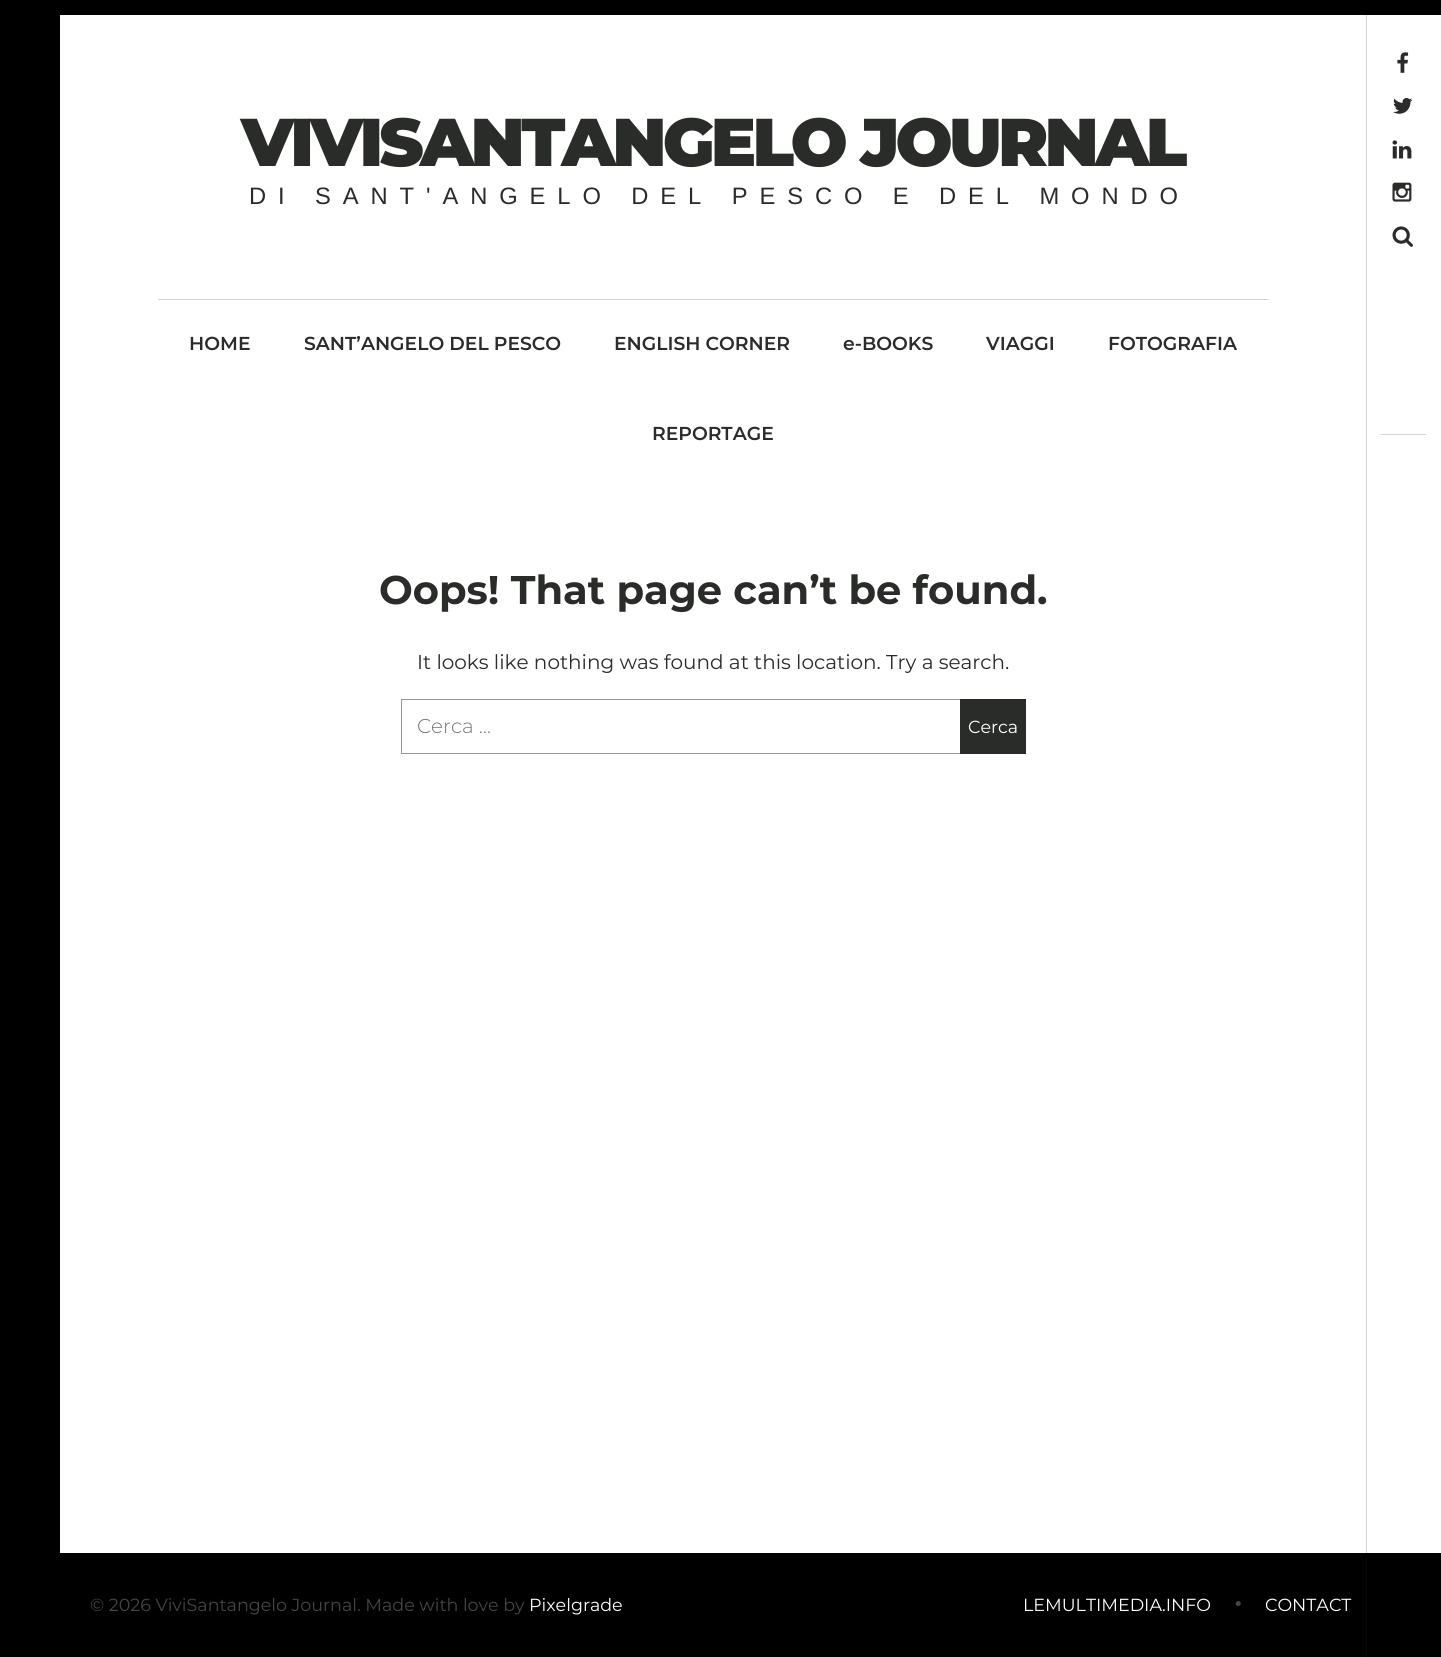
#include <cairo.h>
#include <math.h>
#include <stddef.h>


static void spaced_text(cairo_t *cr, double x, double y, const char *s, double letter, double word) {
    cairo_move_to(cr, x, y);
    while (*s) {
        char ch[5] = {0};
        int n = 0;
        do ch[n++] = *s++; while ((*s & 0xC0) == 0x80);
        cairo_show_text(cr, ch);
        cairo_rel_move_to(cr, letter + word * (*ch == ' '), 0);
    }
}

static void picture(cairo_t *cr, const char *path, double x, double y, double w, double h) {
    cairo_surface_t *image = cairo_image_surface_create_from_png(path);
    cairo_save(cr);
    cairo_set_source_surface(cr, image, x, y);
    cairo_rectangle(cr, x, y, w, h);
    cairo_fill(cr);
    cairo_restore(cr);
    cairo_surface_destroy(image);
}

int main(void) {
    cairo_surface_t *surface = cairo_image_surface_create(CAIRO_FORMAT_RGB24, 1441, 1657);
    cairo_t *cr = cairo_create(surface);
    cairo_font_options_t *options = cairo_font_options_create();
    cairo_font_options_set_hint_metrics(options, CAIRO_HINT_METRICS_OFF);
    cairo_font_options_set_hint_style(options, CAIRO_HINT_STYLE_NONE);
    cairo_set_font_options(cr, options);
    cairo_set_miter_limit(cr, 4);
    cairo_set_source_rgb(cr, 1, 1, 1);
    cairo_paint(cr);
    cairo_set_source_rgb(cr, 0.831, 0.835, 0.831);
    cairo_rectangle(cr, 1366, 14, 1, 1539);
    cairo_fill(cr);
    cairo_set_source_rgb(cr, 0, 0, 0);
    cairo_rectangle(cr, 60, 0, 1381, 15);
    cairo_fill(cr);
    cairo_set_source_rgb(cr, 0.031, 0.035, 0.031);
    cairo_rectangle(cr, 1366, 14, 1, 1);
    cairo_fill(cr);
    cairo_set_source_rgb(cr, 0, 0, 0);
    cairo_rectangle(cr, 0, 0, 60, 1553);
    cairo_fill(cr);
    cairo_select_font_face(cr, "Montserrat Black", CAIRO_FONT_SLANT_NORMAL, CAIRO_FONT_WEIGHT_NORMAL);
    cairo_set_font_size(cr, 67.5);
    cairo_set_source_rgb(cr, 0.165, 0.173, 0.161);
    spaced_text(cr, 241, 166, "VIVISANTANGELO JOURNAL", -3.75, 0);
    cairo_select_font_face(cr, "Liberation Sans", CAIRO_FONT_SLANT_NORMAL, CAIRO_FONT_WEIGHT_NORMAL);
    cairo_set_font_size(cr, 23.75);
    spaced_text(cr, 249, 204, "DI SANT'ANGELO DEL PESCO E DEL MONDO", 11.9, 0);
    cairo_set_source_rgb(cr, 0.831, 0.835, 0.831);
    cairo_rectangle(cr, 158, 299, 1111, 1);
    cairo_fill(cr);
    cairo_select_font_face(cr, "Montserrat SemiBold", CAIRO_FONT_SLANT_NORMAL, CAIRO_FONT_WEIGHT_NORMAL);
    cairo_set_font_size(cr, 18.75);
    cairo_set_source_rgb(cr, 0.165, 0.173, 0.161);
    cairo_move_to(cr, 189, 350);
    cairo_show_text(cr, "HOME");
    cairo_move_to(cr, 304, 350);
    cairo_show_text(cr, "SANT’ANGELO DEL PESCO");
    cairo_move_to(cr, 614, 350);
    cairo_show_text(cr, "ENGLISH CORNER");
    cairo_move_to(cr, 843, 350);
    cairo_show_text(cr, "e-BOOKS");
    cairo_move_to(cr, 986, 350);
    cairo_show_text(cr, "VIAGGI");
    cairo_move_to(cr, 1108, 350);
    cairo_show_text(cr, "FOTOGRAFIA");
    cairo_move_to(cr, 652, 440);
    cairo_show_text(cr, "REPORTAGE");
    cairo_select_font_face(cr, "Montserrat", CAIRO_FONT_SLANT_NORMAL, CAIRO_FONT_WEIGHT_BOLD);
    cairo_set_font_size(cr, 40);
    cairo_move_to(cr, 379, 604);
    cairo_show_text(cr, "Oops! That page can’t be found.");
    cairo_select_font_face(cr, "Montserrat", CAIRO_FONT_SLANT_NORMAL, CAIRO_FONT_WEIGHT_NORMAL);
    cairo_set_font_size(cr, 20);
    cairo_move_to(cr, 417, 669);
    cairo_show_text(cr, "It looks like nothing was found at this location. Try a search.");
    cairo_rectangle(cr, 401.5, 699.5, 624, 54);
    cairo_set_source_rgb(cr, 0.584, 0.588, 0.58);
    cairo_set_line_width(cr, 1);
    cairo_stroke(cr);
    cairo_select_font_face(cr, "Montserrat Light", CAIRO_FONT_SLANT_NORMAL, CAIRO_FONT_WEIGHT_NORMAL);
    cairo_set_source_rgb(cr, 0.459, 0.459, 0.459);
    cairo_move_to(cr, 417, 733);
    cairo_show_text(cr, "Cerca …");
    cairo_set_source_rgb(cr, 0.165, 0.173, 0.161);
    cairo_rectangle(cr, 960, 699, 66, 55);
    cairo_fill(cr);
    cairo_select_font_face(cr, "Montserrat", CAIRO_FONT_SLANT_NORMAL, CAIRO_FONT_WEIGHT_NORMAL);
    cairo_set_font_size(cr, 17.5);
    cairo_set_source_rgb(cr, 1, 1, 1);
    cairo_move_to(cr, 968, 733);
    cairo_show_text(cr, "Cerca");
    cairo_set_source_rgb(cr, 0, 0, 0);
    cairo_rectangle(cr, 0, 1553, 1441, 104);
    cairo_fill(cr);
    cairo_set_source_rgb(cr, 0.031, 0.035, 0.031);
    cairo_rectangle(cr, 1366, 1553, 1, 104);
    cairo_fill(cr);
    cairo_set_source_rgb(cr, 0.275, 0.267, 0.275);
    cairo_move_to(cr, 90, 1611);
    cairo_show_text(cr, "© 2026 ViviSantangelo Journal. Made with love by");
    cairo_set_source_rgb(cr, 1, 1, 1);
    cairo_move_to(cr, 529, 1611);
    cairo_show_text(cr, "Pixelgrade");
    cairo_move_to(cr, 1023, 1611);
    cairo_show_text(cr, "LEMULTIMEDIA.INFO");
    cairo_select_font_face(cr, "DejaVu Sans Mono", CAIRO_FONT_SLANT_NORMAL, CAIRO_FONT_WEIGHT_NORMAL);
    cairo_set_source_rgb(cr, 0.275, 0.267, 0.275);
    cairo_move_to(cr, 1233, 1610);
    cairo_show_text(cr, "•");
    cairo_select_font_face(cr, "Montserrat", CAIRO_FONT_SLANT_NORMAL, CAIRO_FONT_WEIGHT_NORMAL);
    cairo_set_source_rgb(cr, 1, 1, 1);
    cairo_move_to(cr, 1265, 1611);
    cairo_show_text(cr, "CONTACT");
    picture(cr, "img1.png", 1397, 52, 12, 21);
    picture(cr, "img2.png", 1393, 98, 20, 16);
    picture(cr, "img3.png", 1392, 140, 20, 19);
    picture(cr, "img4.png", 1392, 182, 20, 20);
    picture(cr, "img5.png", 1392, 226, 21, 21);
    cairo_set_source_rgb(cr, 0.831, 0.835, 0.831);
    cairo_rectangle(cr, 1381, 434, 45, 1);
    cairo_fill(cr);
    cairo_surface_write_to_png(surface, "page.png");
    cairo_font_options_destroy(options);
    cairo_destroy(cr);
    cairo_surface_destroy(surface);
    return 0;
}
